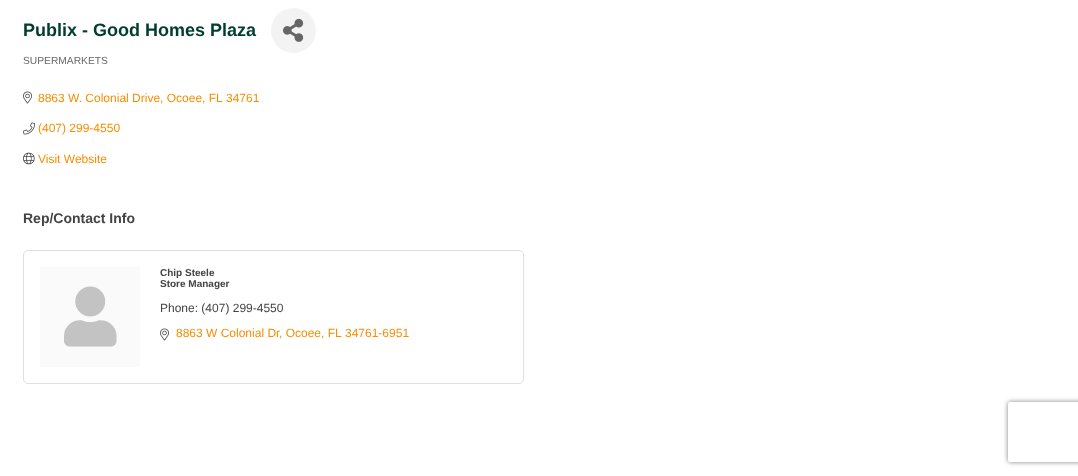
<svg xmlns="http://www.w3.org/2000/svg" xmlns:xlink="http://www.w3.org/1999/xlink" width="1078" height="476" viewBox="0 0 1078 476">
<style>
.cls-1{font:bold 18px Liberation Sans;fill:#003d2d}
.cls-2{font:10.25px Liberation Sans;fill:#696969}
.cls-3{font:12px Liberation Sans;fill:#f88d00}
.cls-4{font:bold 14px Liberation Sans;fill:#444444}
.cls-5{font:bold 10px Liberation Sans;fill:#444444}
.cls-6{font:12px Liberation Sans;fill:#444444}
</style>
<defs>
<clipPath id="clip1"><path d="M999 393H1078V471H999ZM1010 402H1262C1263 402 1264 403 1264 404V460C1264 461 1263 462 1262 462H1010C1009 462 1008 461 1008 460V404C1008 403 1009 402 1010 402Z" clip-rule="evenodd"/></clipPath>
</defs>
<rect width="100%" height="100%" fill="#ffffff"/>
<circle fill="#f3f3f3" cx="293.5" cy="30.5" r="22.5"/>
<image xlink:href="image0.png" x="283" y="18" width="21" height="24"/>
<image xlink:href="image1.png" x="23" y="91" width="9" height="13"/>
<image xlink:href="image2.png" x="23" y="122" width="12" height="13"/>
<image xlink:href="image3.png" x="23" y="152" width="12" height="13"/>
<rect fill="none" stroke="#dfdfdf" x="23.5" y="250.5" width="500" height="133" rx="4.5"/>
<rect fill="#fafafa" x="40" y="267" width="100" height="100"/>
<image xlink:href="image4.png" x="64" y="286" width="53" height="61"/>
<image xlink:href="image1.png" x="160" y="328" width="9" height="13"/>
<g clip-path="url(#clip1)">
<rect fill="#808080" filter="blur(2.5px)" x="1008" y="402" width="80" height="60" rx="2"/>
</g>
<text class="cls-1" x="23" y="36">Publix - Good Homes Plaza</text>
<text class="cls-2" x="23" y="64">SUPERMARKETS</text>
<text class="cls-3" x="38" y="102">8863 W. Colonial Drive, Ocoee, FL</text>
<text class="cls-3" x="226" y="102">34761</text>
<text class="cls-3" x="38" y="132">(407) 299-4550</text>
<text class="cls-3" x="38" y="163">Visit Website</text>
<text class="cls-4" x="23" y="223">Rep/Contact Info</text>
<text class="cls-5"><tspan x="160" y="276">Chip Steele</tspan><tspan x="160" y="287">Store Manager</tspan></text>
<text class="cls-6" x="160" y="312">Phone: (407) 299-4550</text>
<text class="cls-3" x="176" y="337">8863 W Colonial Dr</text>
<text class="cls-3" x="279" y="337">, Ocoee, FL</text>
<text class="cls-3" x="345" y="337">34761-6951</text>
</svg>
